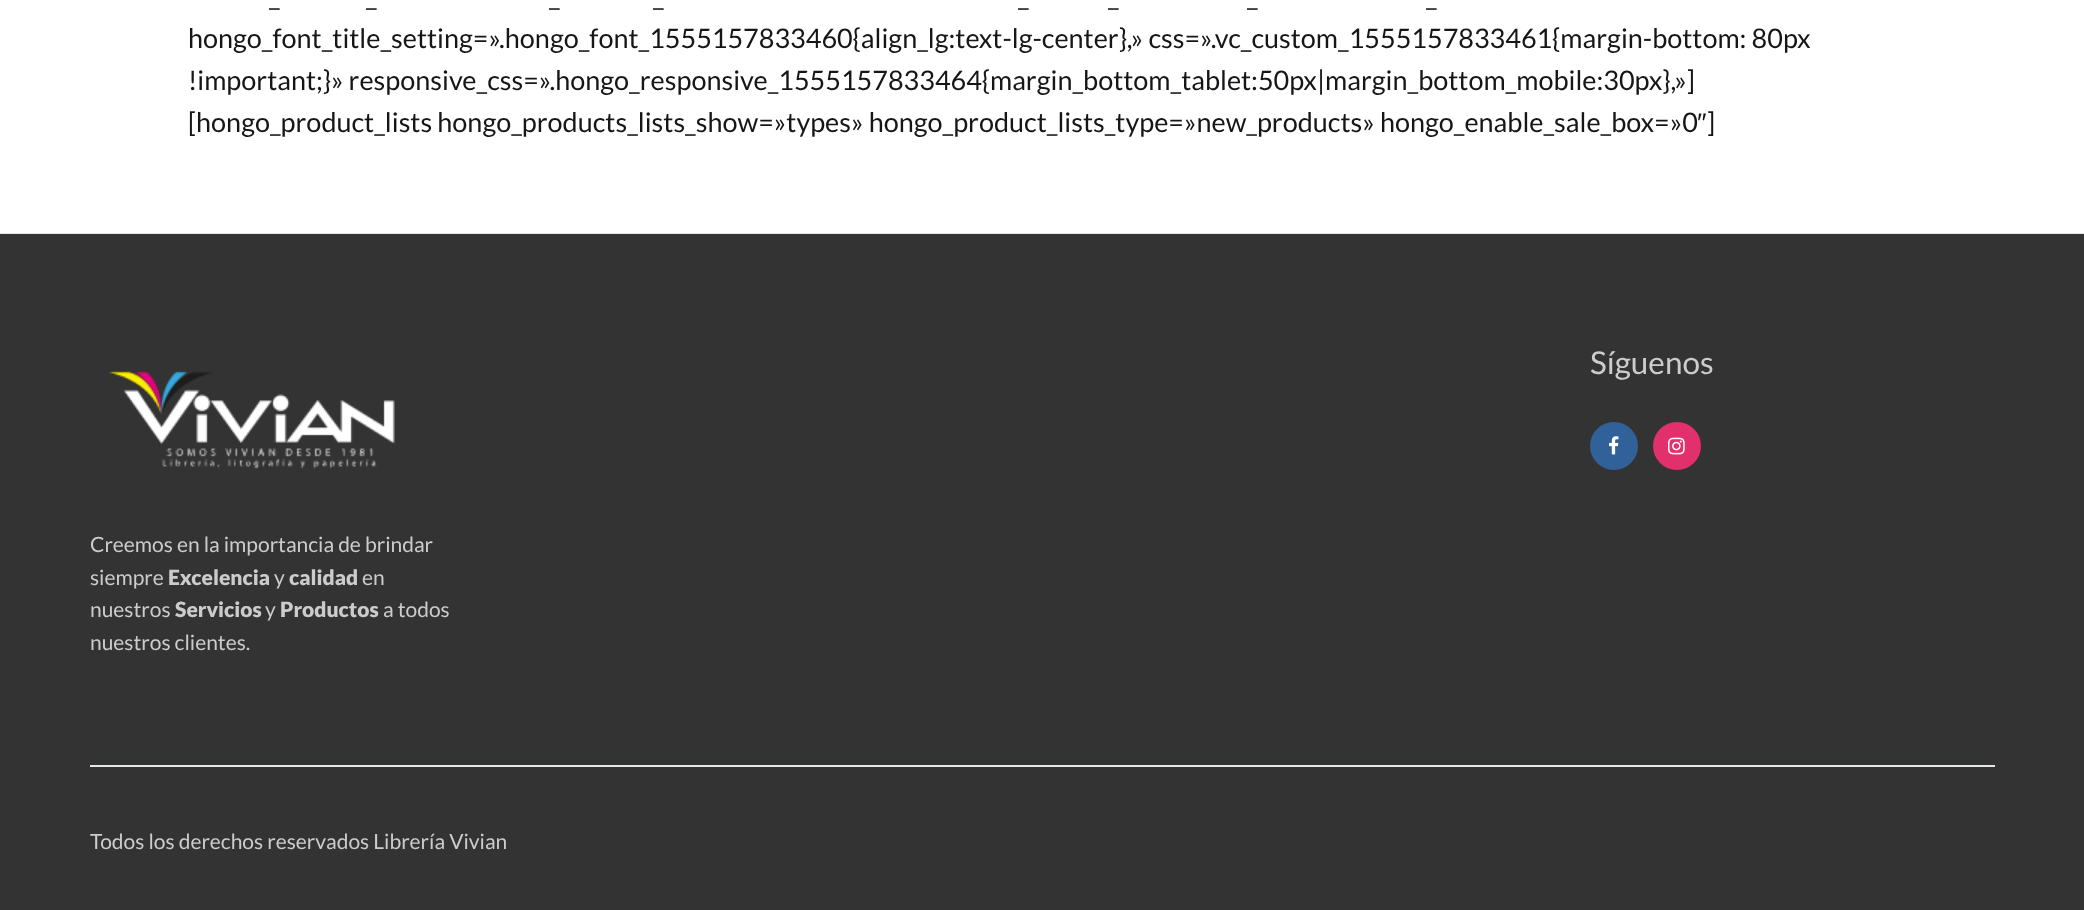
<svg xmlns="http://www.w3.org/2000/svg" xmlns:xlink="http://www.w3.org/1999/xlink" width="2084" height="910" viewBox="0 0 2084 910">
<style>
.cls-1{font:27px Lato;fill:#161619}
.cls-2{font:27px Liberation Sans;fill:#161619}
.cls-3{font:31.5px Lato;fill:#cccccc}
.cls-4{font:21px Lato;fill:#cccccc}
.cls-5{font:900 21px Lato;fill:#cccccc}
</style>
<rect width="100%" height="100%" fill="#ffffff"/>
<rect fill="#e3e7e8" x="0" y="233" width="2084" height="1"/>
<rect fill="#333333" x="0" y="234" width="2084" height="676"/>
<circle fill="#306199" cx="1614" cy="446" r="24"/>
<image xlink:href="image0.png" x="1609" y="436" width="10" height="19"/>
<circle fill="#e1306c" cx="1677" cy="446" r="24"/>
<image xlink:href="image1.png" x="1668" y="437" width="17" height="18"/>
<image xlink:href="image2.png" x="109" y="371" width="286" height="98"/>
<rect fill="#e3e7e8" x="90" y="765" width="1905" height="2"/>
<text class="cls-1" x="269" y="6">_</text>
<text class="cls-1" x="366" y="6">_</text>
<text class="cls-1" x="549" y="6">_</text>
<text class="cls-1" x="653" y="6">_</text>
<text class="cls-1" x="1018" y="6">_</text>
<text class="cls-1" x="1108" y="6">_</text>
<text class="cls-1" x="1247" y="6">_</text>
<text class="cls-1" x="1426" y="6">_</text>
<text class="cls-1"><tspan x="188" y="48">hongo_font_title_setting=».hongo_font_1555157833460{align_lg:text-lg-center},» css=».vc_custom_1555157833461{margin-bottom: 80px</tspan><tspan x="188" y="90">!important;}» responsive_css=».hongo_responsive_1555157833464{margin_bottom_tablet:50px|margin_bottom_mobile:30px},»]</tspan><tspan x="188" y="132">[hongo_product_lists hongo_products_lists_show=»types» hongo_product_lists_type=»new_products» hongo_enable_sale_box=»0</tspan></text>
<text class="cls-2" x="1697" y="132">″</text>
<text class="cls-1" x="1707" y="132">]</text>
<text class="cls-3" x="1590" y="374">Síguenos</text>
<text class="cls-4"><tspan x="90" y="552">Creemos en la importancia de brindar</tspan><tspan x="90" y="585">siempre</tspan></text>
<text class="cls-5" x="168" y="585">Excelencia</text>
<text class="cls-4" x="274" y="585">y</text>
<text class="cls-5" x="289" y="585">calidad</text>
<text class="cls-4" x="362" y="585">en</text>
<text class="cls-4" x="90" y="617">nuestros</text>
<text class="cls-5" x="175" y="617">Servicios</text>
<text class="cls-4" x="265" y="617">y</text>
<text class="cls-5" x="280" y="617">Productos</text>
<text class="cls-4" x="383" y="617">a todos</text>
<text class="cls-4" x="90" y="650">nuestros clientes.</text>
<text class="cls-4" x="90" y="849">Todos los derechos reservados Librería Vivian</text>
</svg>
